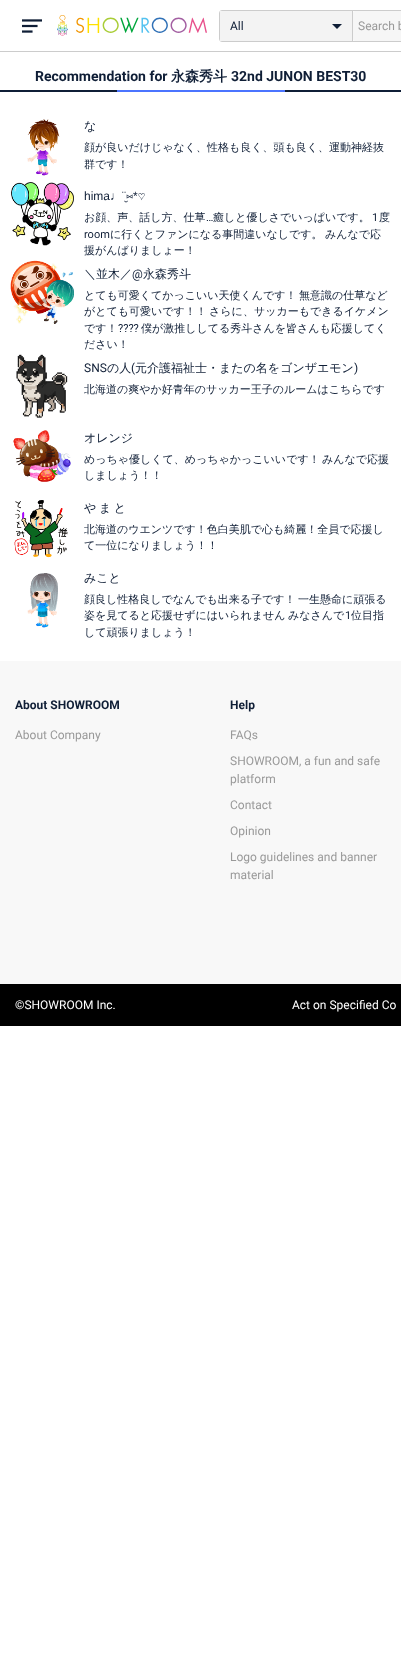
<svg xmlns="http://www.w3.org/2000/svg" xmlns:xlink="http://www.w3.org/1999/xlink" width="401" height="1659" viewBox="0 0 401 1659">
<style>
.cls-1{font:12px Roboto;fill:#0f1e36}
.cls-2{font:12px Roboto;fill:#999999}
.cls-3{font:bold 14px Roboto;fill:#0f1e36}
.cls-4{font:bold 14px WenQuanYi Zen Hei;fill:#0f1e36}
.cls-5{font:500 12px WenQuanYi Zen Hei;fill:#0f1e36}
.cls-6{font:500 11px WenQuanYi Zen Hei;fill:#0f1e36}
.cls-7{font:12px Liberation Sans;fill:#0f1e36}
.cls-8{font:12px FreeMono;fill:#0f1e36}
.cls-9{font:11px Roboto;fill:#0f1e36}
.cls-10{font:bold 12px Roboto;fill:#0f1e36}
.cls-11{font:12px Roboto;fill:#ffffff}
</style>
<rect width="100%" height="100%" fill="#ffffff"/>
<rect fill="#cccccc" x="0" y="51" width="401" height="1"/>
<image xlink:href="image0.png" x="22" y="19" width="20" height="14"/>
<image xlink:href="image1.png" x="57" y="15" width="150" height="21"/>
<rect fill="none" stroke="#cccccc" x="219.5" y="10.5" width="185" height="31" rx="2.5"/>
<rect fill="#f3f3f3" x="220" y="11" width="132" height="30"/>
<rect fill="#cccccc" x="352" y="11" width="1" height="30"/>
<path fill="#0f1e36" d="M332 24H342L337 29Z"/>
<rect fill="#f6f6f6" x="353" y="11" width="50" height="30" rx="2"/>
<rect fill="#0f1e36" x="0" y="90" width="401" height="2"/>
<rect fill="#4b74ff" x="117" y="90" width="168" height="2"/>
<image xlink:href="image2.png" x="27" y="119" width="33" height="57"/>
<image xlink:href="image3.png" x="11" y="182" width="63" height="64"/>
<image xlink:href="image4.png" x="10" y="260" width="64" height="64"/>
<image xlink:href="image5.png" x="16" y="354" width="52" height="64"/>
<image xlink:href="image6.png" x="13" y="430" width="58" height="52"/>
<image xlink:href="image7.png" x="14" y="500" width="54" height="58"/>
<image xlink:href="image8.png" x="27" y="573" width="31" height="55"/>
<rect fill="#f8f8f8" x="0" y="661" width="401" height="323"/>
<rect fill="#000000" x="0" y="984" width="401" height="42"/>
<text class="cls-1" x="230" y="30">All</text>
<text class="cls-2" x="358" y="30">Search b</text>
<text class="cls-3" x="35" y="81">Recommendation for</text>
<text class="cls-4" x="171" y="81">永森秀斗</text>
<text class="cls-3" x="231" y="81">32nd JUNON BEST30</text>
<text class="cls-5" x="84" y="130">な</text>
<text class="cls-6"><tspan x="84" y="151">顔が良いだけじゃなく、性格も良く、頭も良く、運動神経抜</tspan><tspan x="84" y="168">群です！</tspan></text>
<text class="cls-7" x="84" y="200">hima♩¨̮</text>
<text class="cls-8" x="126" y="200">⑅</text>
<text class="cls-7" x="133" y="200">*</text>
<text class="cls-8" x="138" y="200">♡</text>
<text class="cls-6" x="84" y="221">お顔、声、話し方、仕草</text>
<text class="cls-9" x="206" y="221">…</text>
<text class="cls-6" x="213" y="221">癒しと優しさでいっぱいです。</text>
<text class="cls-9" x="372" y="221">1</text>
<text class="cls-6" x="379" y="221">度</text>
<text class="cls-9" x="84" y="238">room</text>
<text class="cls-6" x="110" y="238" word-spacing="-1">に行くとファンになる事間違いなしです。 みんなで応</text>
<text class="cls-6" x="84" y="254">援がんばりましょー！</text>
<text class="cls-5" x="84" y="278">＼並木／</text>
<text class="cls-1" x="132" y="278">@</text>
<text class="cls-5" x="143" y="278">永森秀斗</text>
<text class="cls-6"><tspan x="84" y="299" word-spacing="-1">とても可愛くてかっこいい天使くんです！ 無意識の仕草など</tspan><tspan x="84" y="315" word-spacing="-1">がとても可愛いです！！ さらに、サッカーもできるイケメン</tspan><tspan x="84" y="332">です！</tspan></text>
<text class="cls-9" x="118" y="332">????</text>
<text class="cls-6" x="141" y="332">僕が激推ししてる秀斗さんを皆さんも応援してく</text>
<text class="cls-6" x="84" y="348">ださい！</text>
<text class="cls-1" x="84" y="372">SNS</text>
<text class="cls-5" x="107" y="372">の人</text>
<text class="cls-1" x="131" y="372">(</text>
<text class="cls-5" x="135" y="372">元介護福祉士・またの名をゴンザエモン</text>
<text class="cls-1" x="354" y="372">)</text>
<text class="cls-6" x="84" y="393">北海道の爽やか好青年のサッカー王子のルームはこちらです</text>
<text class="cls-5" x="84" y="442">オレンジ</text>
<text class="cls-6"><tspan x="84" y="463" word-spacing="-1">めっちゃ優しくて、めっちゃかっこいいです！ みんなで応援</tspan><tspan x="84" y="479">しましょう！！</tspan></text>
<text class="cls-5" x="84" y="512" word-spacing="-1">や ま と</text>
<text class="cls-6"><tspan x="84" y="533">北海道のウエンツです！色白美肌で心も綺麗！全員で応援し</tspan><tspan x="84" y="549">て一位になりましょう！！</tspan></text>
<text class="cls-5" x="84" y="582">みこと</text>
<text class="cls-6"><tspan x="84" y="603" word-spacing="-1">顔良し性格良しでなんでも出来る子です！ 一生懸命に頑張る</tspan><tspan x="84" y="619" word-spacing="-1">姿を見てると応援せずにはいられません みなさんで</tspan></text>
<text class="cls-9" x="345" y="619">1</text>
<text class="cls-6" x="351" y="619">位目指</text>
<text class="cls-6" x="84" y="636">して頑張りましょう！</text>
<text class="cls-10" x="15" y="709">About SHOWROOM</text>
<text class="cls-2" x="15" y="739">About Company</text>
<text class="cls-10" x="230" y="709">Help</text>
<text class="cls-2" x="230" y="739">FAQs</text>
<text class="cls-2"><tspan x="230" y="765">SHOWROOM, a fun and safe</tspan><tspan x="230" y="783">platform</tspan></text>
<text class="cls-2" x="230" y="809">Contact</text>
<text class="cls-2" x="230" y="835">Opinion</text>
<text class="cls-2"><tspan x="230" y="861">Logo guidelines and banner</tspan><tspan x="230" y="879">material</tspan></text>
<text class="cls-11" x="15" y="1009">©SHOWROOM Inc.</text>
<text class="cls-11" x="292" y="1009">Act on Specified Co</text>
</svg>
